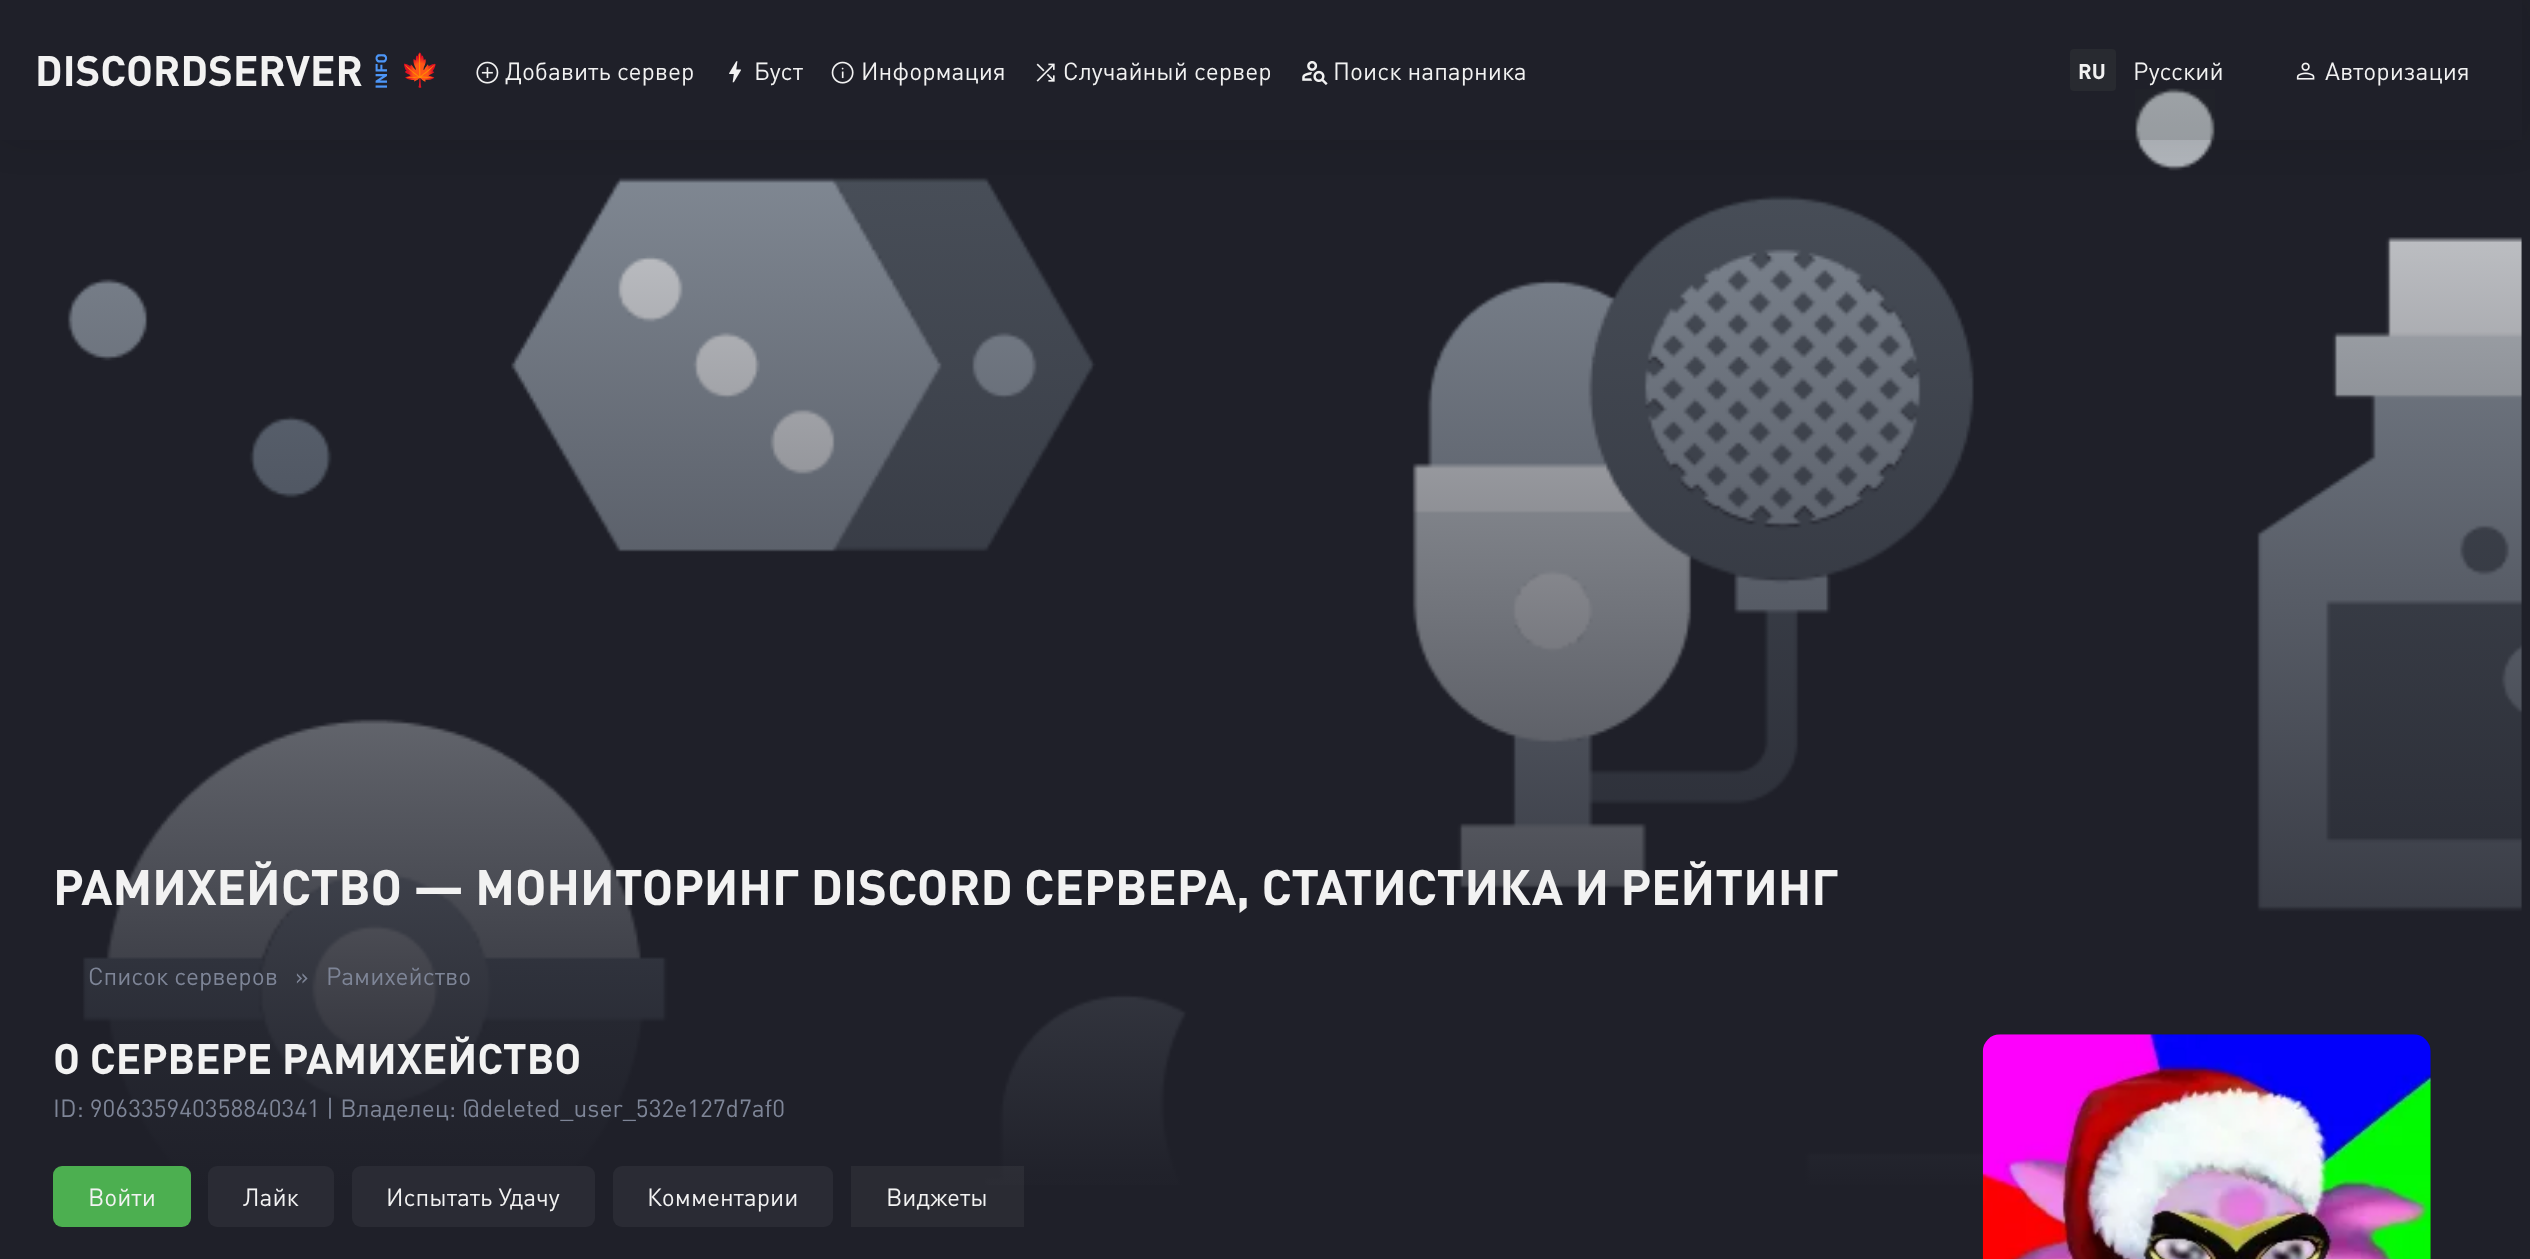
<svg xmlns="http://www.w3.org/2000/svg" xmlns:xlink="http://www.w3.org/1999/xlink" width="2530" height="1259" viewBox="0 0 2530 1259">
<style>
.cls-1{font:bold 42px DIN;fill:#f2f2f2}
.cls-2{font:bold 16px DIN;fill:#4d96f7}
.cls-3{font:bold 32px Noto Color Emoji;fill:#f2f2f2}
.cls-4{font:24.5px DIN;fill:#f2f2f2}
.cls-5{font:bold 21px DIN;fill:#f2f2f2}
.cls-6{font:bold 49px DIN;fill:#f2f2f2}
.cls-7{font:24.5px DIN;fill:#7e8597}
</style>
<defs>
<linearGradient id="g1" gradientUnits="userSpaceOnUse" x1="1261" y1="0" x2="1261" y2="1192"><stop offset="0" stop-color="#1f2029" stop-opacity="0"/><stop offset="1" stop-color="#1f2029"/></linearGradient>
<clipPath id="clip1"><path d="M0 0H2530V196H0ZM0 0H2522V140H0Z" clip-rule="evenodd"/></clipPath>
</defs>
<rect width="100%" height="100%" fill="#1f2029"/>
<image xlink:href="image6.png" x="67" y="88" width="2455" height="1097"/>
<rect fill="url(#g1)" x="68" y="89" width="2454" height="1096"/>
<g clip-path="url(#clip1)">
<rect fill="#000000" fill-opacity="0.1" filter="blur(17.5px)" x="-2" y="-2" width="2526" height="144"/>
</g>
<rect fill="#2a2c2f" fill-opacity="0.2" x="2135" y="89" width="80" height="51"/>
<image xlink:href="image0.png" x="476" y="61" width="23" height="23"/>
<image xlink:href="image1.png" x="729" y="61" width="12" height="22"/>
<image xlink:href="image2.png" x="831" y="61" width="23" height="23"/>
<image xlink:href="image3.png" x="1036" y="63" width="19" height="19"/>
<image xlink:href="image4.png" x="1302" y="61" width="26" height="24"/>
<rect fill="#282a30" x="2070" y="49" width="46" height="42" rx="4"/>
<image xlink:href="image5.png" x="2296" y="62" width="19" height="18"/>
<rect fill="#4caf50" x="53" y="1166" width="138" height="61" rx="9"/>
<rect fill="#2a2b34" x="208" y="1166" width="126" height="61" rx="9"/>
<rect fill="#2a2b34" x="352" y="1166" width="243" height="61" rx="9"/>
<rect fill="#2a2b34" x="613" y="1166" width="220" height="61" rx="9"/>
<rect fill="#ffffff" fill-opacity="0.05" x="851" y="1166" width="173" height="61"/>
<image xlink:href="image7.png" x="1982" y="1034" width="449" height="225"/>
<text class="cls-1" x="35" y="86">DISCORDSERVER</text>
<text class="cls-2" x="387" y="89" transform="rotate(-90 387 89)">INFO</text>
<text class="cls-3" x="400" y="81">🍁</text>
<text class="cls-4" x="505" y="80">Добавить сервер</text>
<text class="cls-4" x="754" y="80">Буст</text>
<text class="cls-4" x="861" y="80">Информация</text>
<text class="cls-4" x="1063" y="80">Случайный сервер</text>
<text class="cls-4" x="1333" y="80">Поиск напарника</text>
<text class="cls-5" x="2078" y="79">RU</text>
<text class="cls-4" x="2133" y="80">Русский</text>
<text class="cls-4" x="2325" y="80">Авторизация</text>
<text class="cls-6" x="53" y="905">РАМИХЕЙСТВО — МОНИТОРИНГ DISCORD СЕРВЕРА, СТАТИСТИКА И РЕЙТИНГ</text>
<text class="cls-7" x="88" y="985">Список серверов</text>
<text class="cls-7" x="295" y="985">»</text>
<text class="cls-7" x="326" y="985">Рамихейство</text>
<text class="cls-1" x="53" y="1074">О СЕРВЕРЕ РАМИХЕЙСТВО</text>
<text class="cls-7" x="53" y="1117">ID: 906335940358840341 | Владелец: @deleted_user_532e127d7af0</text>
<text class="cls-4" x="88" y="1206">Войти</text>
<text class="cls-4" x="243" y="1206">Лайк</text>
<text class="cls-4" x="386" y="1206">Испытать Удачу</text>
<text class="cls-4" x="647" y="1206">Комментарии</text>
<text class="cls-4" x="886" y="1206">Виджеты</text>
</svg>
